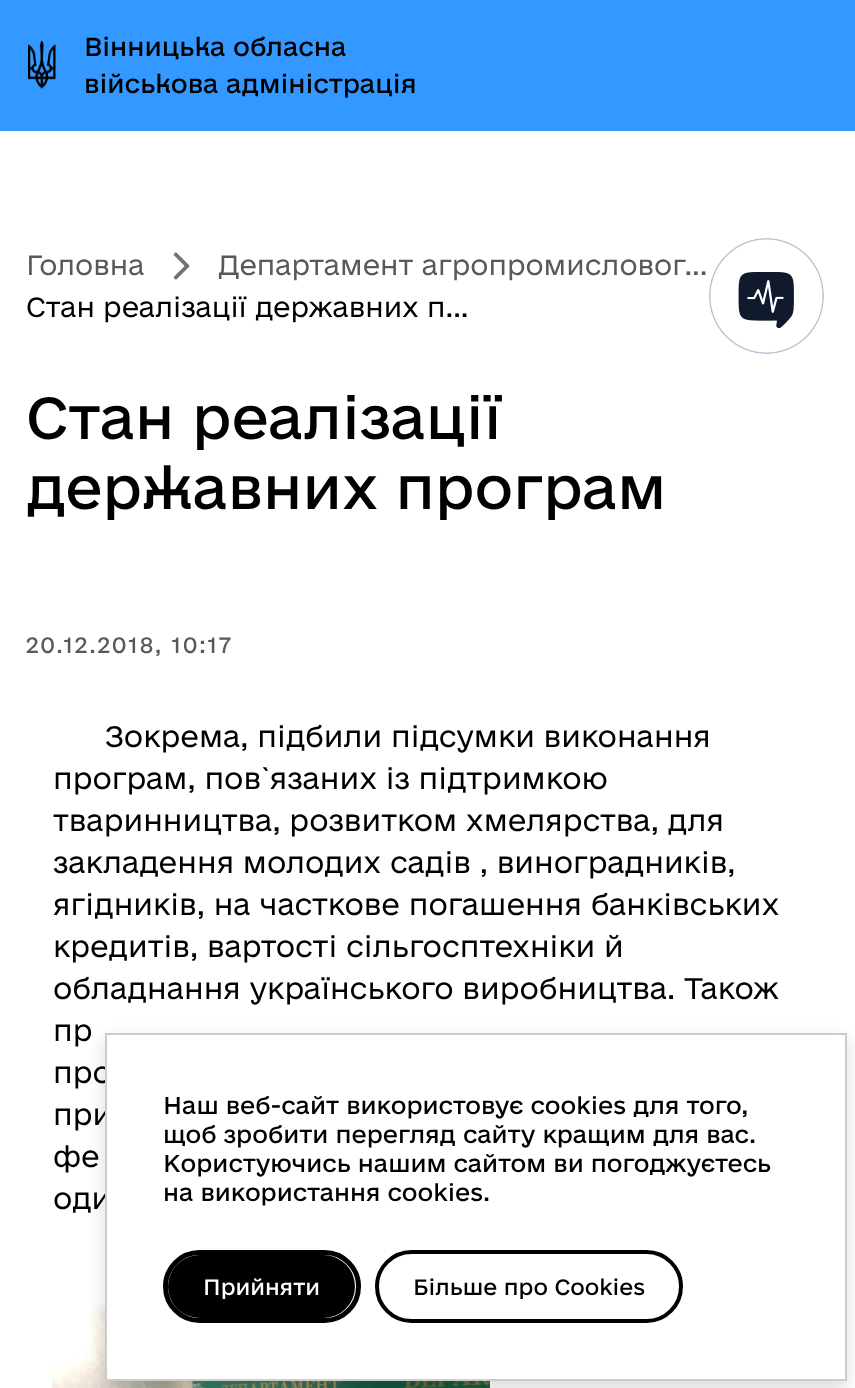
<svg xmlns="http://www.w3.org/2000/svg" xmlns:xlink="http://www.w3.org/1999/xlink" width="855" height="1388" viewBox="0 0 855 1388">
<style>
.cls-1{font:24.5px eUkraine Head;fill:#000000}
.cls-2{font:300 26.25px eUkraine;fill:#595959}
.cls-3{font:300 26.25px eUkraine;fill:#000000}
.cls-4{font:56px eUkraine Head;fill:#000000}
.cls-5{font:21px eUkraine;letter-spacing:1.75px;fill:#595959}
.cls-6{font:300 28px eUkraine;fill:#000000}
.cls-7{font:22.75px eUkraine;fill:#000000}
.cls-8{font:21px eUkraine;fill:#ffffff}
.cls-9{font:21px eUkraine;fill:#000000}
</style>
<rect width="100%" height="100%" fill="#ffffff"/>
<rect fill="#3398ff" x="0" y="0" width="855" height="131"/>
<image xlink:href="image0.png" x="28" y="40" width="28" height="49"/>
<image xlink:href="image1.png" x="173" y="252" width="17" height="28"/>
<image xlink:href="image2.png" x="52" y="1304" width="438" height="84"/>
<image xlink:href="image3.png" x="709" y="238" width="115" height="116"/>
<rect fill="#000000" fill-opacity="0.15" filter="blur(9px)" x="105" y="1040" width="742" height="348"/>
<text class="cls-1"><tspan x="84" y="56">Вінницька обласна</tspan><tspan x="84" y="93">військова адміністрація</tspan></text>
<text class="cls-2" x="26" y="275">Головна</text>
<text class="cls-2" x="218" y="275">Департамент агропромисловог...</text>
<text class="cls-3" x="26" y="317">Стан реалізації державних п...</text>
<text class="cls-4"><tspan x="26" y="439">Стан реалізації</tspan><tspan x="26" y="509">державних програм</tspan></text>
<text class="cls-5" x="26" y="653">20.12.2018, 10:17</text>
<text class="cls-6" x="105" y="747">Зокрема, підбили підсумки виконання</text>
<text class="cls-6"><tspan x="53" y="789">програм, пов`язаних із підтримкою</tspan><tspan x="53" y="831">тваринництва, розвитком хмелярства, для</tspan><tspan x="53" y="873">закладення молодих садів , виноградників,</tspan><tspan x="53" y="915">ягідників, на часткове погашення банківських</tspan><tspan x="53" y="957">кредитів, вартості сільгосптехніки й</tspan><tspan x="53" y="999">обладнання українського виробництва. Також</tspan><tspan x="53" y="1041">пр</tspan><tspan x="53" y="1083">про</tspan><tspan x="53" y="1125">при</tspan><tspan x="53" y="1167">фе</tspan><tspan x="53" y="1209">оди</tspan></text>
<rect fill="#ffffff" stroke="#cccccc" stroke-width="2" x="106" y="1034" width="740" height="346"/>
<text class="cls-7"><tspan x="163" y="1114">Наш веб-сайт використовує cookies для того,</tspan><tspan x="163" y="1143">щоб зробити перегляд сайту кращим для вас.</tspan><tspan x="163" y="1172">Користуючись нашим сайтом ви погоджуєтесь</tspan><tspan x="163" y="1201">на використання cookies.</tspan></text>
<rect fill="#000000" x="168" y="1255" width="187" height="63" rx="31.5"/>
<rect fill="none" stroke="#000000" stroke-width="5" x="165.5" y="1252.5" width="193" height="68" rx="34"/>
<text class="cls-8" x="203" y="1295">Прийняти</text>
<rect fill="none" stroke="#000000" stroke-width="4" x="377" y="1252" width="304" height="69" rx="34.5"/>
<text class="cls-9" x="413" y="1295">Більше про Cookies</text>
</svg>
